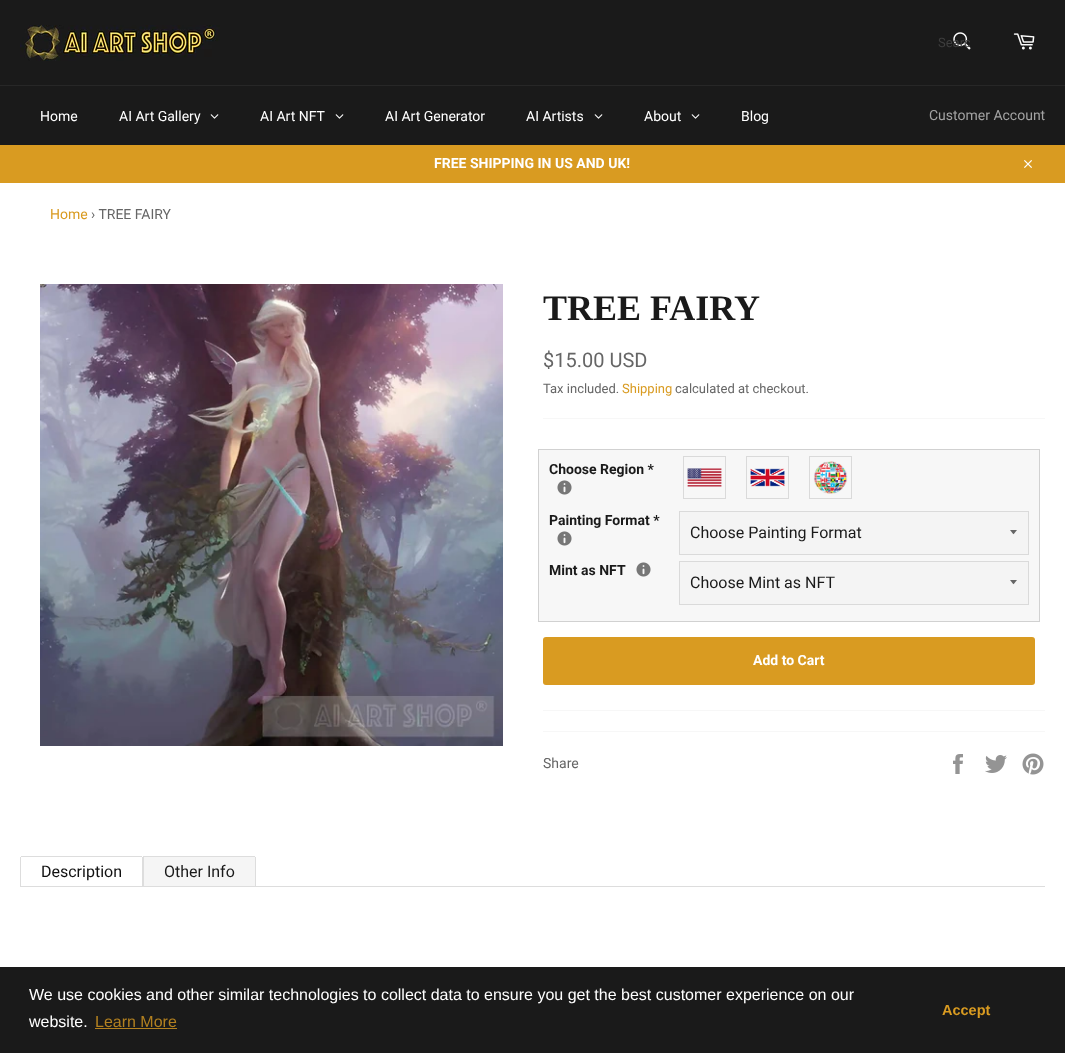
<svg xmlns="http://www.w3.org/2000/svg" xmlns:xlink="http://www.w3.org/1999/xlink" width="1065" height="1053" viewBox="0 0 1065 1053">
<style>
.cls-1{font:13px Roboto;fill:#3d3d3d}
.cls-2{font:14px Roboto;fill:#ffffff}
.cls-3{font:14px Roboto;fill:#a3a3a3}
.cls-4{font:bold 14px Roboto;fill:#ffffff}
.cls-5{font:14px Roboto;fill:#d99b21}
.cls-6{font:14px Roboto;fill:#666666}
.cls-7{font:bold 36px Liberation Serif;fill:#1a1a1a}
.cls-8{font:20px Roboto;fill:#666666}
.cls-9{font:13px Roboto;fill:#666666}
.cls-10{font:13px Roboto;fill:#d99b21}
.cls-11{font:bold 14px Roboto;fill:#1a1a1a}
.cls-12{font:16px Roboto;fill:#1a1a1a}
.cls-13{font:16px Roboto;fill:#111111}
.cls-14{font:16px Liberation Sans;fill:#ffffff}
.cls-15{font:16px Liberation Sans;fill:#b38120}
.cls-16{font:bold 14.5px Liberation Sans;fill:#d99b21}
</style>
<defs>
<clipPath id="clip1"><rect x="938" y="35" width="32" height="15"/></clipPath>
</defs>
<rect width="100%" height="100%" fill="#1a1a1a"/>
<image xlink:href="image0.png" x="20" y="25" width="200" height="36"/>
<image xlink:href="image1.png" x="953" y="32" width="18" height="18"/>
<image xlink:href="image2.png" x="1013" y="33" width="22" height="17"/>
<rect fill="#272727" x="0" y="85" width="1065" height="1"/>
<image xlink:href="image3.png" x="210" y="114" width="9" height="5"/>
<image xlink:href="image3.png" x="335" y="114" width="9" height="5"/>
<image xlink:href="image3.png" x="594" y="114" width="9" height="5"/>
<image xlink:href="image3.png" x="691" y="114" width="9" height="5"/>
<rect fill="#d99b21" x="0" y="145" width="1065" height="38"/>
<image xlink:href="image4.png" x="1024" y="160" width="8" height="8"/>
<rect fill="#ffffff" x="0" y="183" width="1065" height="784"/>
<image xlink:href="image5.png" x="40" y="284" width="463" height="462"/>
<rect fill="#f7f7f7" x="543" y="418" width="502" height="1"/>
<rect fill="#f7f7f7" stroke="#d1d1d1" x="538.5" y="449.5" width="501" height="172"/>
<image xlink:href="image6.png" x="557" y="480" width="15" height="15"/>
<image xlink:href="image7.png" x="687" y="468" width="35" height="19"/>
<rect fill="none" stroke="#dadada" x="683.5" y="456.5" width="42" height="42"/>
<image xlink:href="image8.png" x="750" y="468" width="35" height="19"/>
<rect fill="none" stroke="#dadada" x="746.5" y="456.5" width="42" height="42"/>
<image xlink:href="image9.png" x="813" y="461" width="35" height="33"/>
<rect fill="none" stroke="#dadada" x="809.5" y="456.5" width="42" height="42"/>
<image xlink:href="image6.png" x="557" y="531" width="15" height="15"/>
<rect fill="#f4f4f4" x="680" y="512" width="348" height="42"/>
<path fill="#666666" d="M1010 530C1014.5 535.5 1012.5 535.5 1017 530Z"/>
<rect fill="none" stroke="#dadada" x="679.5" y="511.5" width="349" height="43"/>
<image xlink:href="image6.png" x="636" y="562" width="15" height="15"/>
<rect fill="#f4f4f4" x="680" y="562" width="348" height="42"/>
<path fill="#666666" d="M1010 580C1014.5 585.5 1012.5 585.5 1017 580Z"/>
<rect fill="none" stroke="#dadada" x="679.5" y="561.5" width="349" height="43"/>
<rect fill="#d99b21" x="543" y="637" width="492" height="48" rx="3"/>
<rect fill="#f7f7f7" x="543" y="710" width="502" height="1"/>
<rect fill="#f7f7f7" x="543" y="731" width="502" height="1"/>
<image xlink:href="image10.png" x="953" y="754" width="10" height="20"/>
<image xlink:href="image11.png" x="985" y="755" width="22" height="18"/>
<image xlink:href="image12.png" x="1022" y="753" width="22" height="22"/>
<rect fill="#dddddd" x="20" y="886" width="1025" height="1"/>
<rect fill="#dddddd" x="21" y="856" width="121" height="1"/>
<rect fill="#dddddd" x="142" y="857" width="1" height="29"/>
<rect fill="#dddddd" x="20" y="857" width="1" height="29"/>
<path fill="#f5f5f5" d="M143 856H254C255 856 256 857 256 858V886H143Z"/>
<rect fill="#dddddd" x="143" y="856" width="112" height="1"/>
<rect fill="#dddddd" x="255" y="857" width="1" height="29"/>
<rect fill="#dddddd" x="143" y="856" width="1" height="30"/>
<rect fill="#b38120" x="95" y="1028" width="82" height="1"/>
<g clip-path="url(#clip1)">
<text class="cls-1" x="938" y="47">Searc</text>
</g>
<text class="cls-2" x="40" y="121">Home</text>
<text class="cls-2" x="119" y="121">AI Art Gallery</text>
<text class="cls-2" x="260" y="121">AI Art NFT</text>
<text class="cls-2" x="385" y="121">AI Art Generator</text>
<text class="cls-2" x="526" y="121">AI Artists</text>
<text class="cls-2" x="644" y="121">About</text>
<text class="cls-2" x="741" y="121">Blog</text>
<text class="cls-3" x="929" y="120">Customer Account</text>
<text class="cls-4" x="434" y="168">FREE SHIPPING IN US AND UK!</text>
<text class="cls-5" x="50" y="219">Home</text>
<text class="cls-6" x="91" y="219">› TREE FAIRY</text>
<text class="cls-7" x="543" y="320">TREE FAIRY</text>
<text class="cls-8" x="543" y="367">$15.00 USD</text>
<text class="cls-9" x="543" y="393">Tax included.</text>
<text class="cls-10" x="622" y="393">Shipping</text>
<text class="cls-9" x="675" y="393">calculated at checkout.</text>
<text class="cls-11" x="549" y="474">Choose Region *</text>
<text class="cls-11" x="549" y="525">Painting Format *</text>
<text class="cls-12" x="690" y="538">Choose Painting Format</text>
<text class="cls-11" x="549" y="575">Mint as NFT</text>
<text class="cls-12" x="690" y="588">Choose Mint as NFT</text>
<text class="cls-4" x="753" y="665">Add to Cart</text>
<text class="cls-6" x="543" y="768">Share</text>
<text class="cls-13" x="41" y="877">Description</text>
<text class="cls-12" x="164" y="877">Other Info</text>
<text class="cls-14"><tspan x="29" y="1000">We use cookies and other similar technologies to collect data to ensure you get the best customer experience on our</tspan><tspan x="29" y="1027">website.</tspan></text>
<text class="cls-15" x="95" y="1027">Learn More</text>
<text class="cls-16" x="942" y="1015">Accept</text>
</svg>
